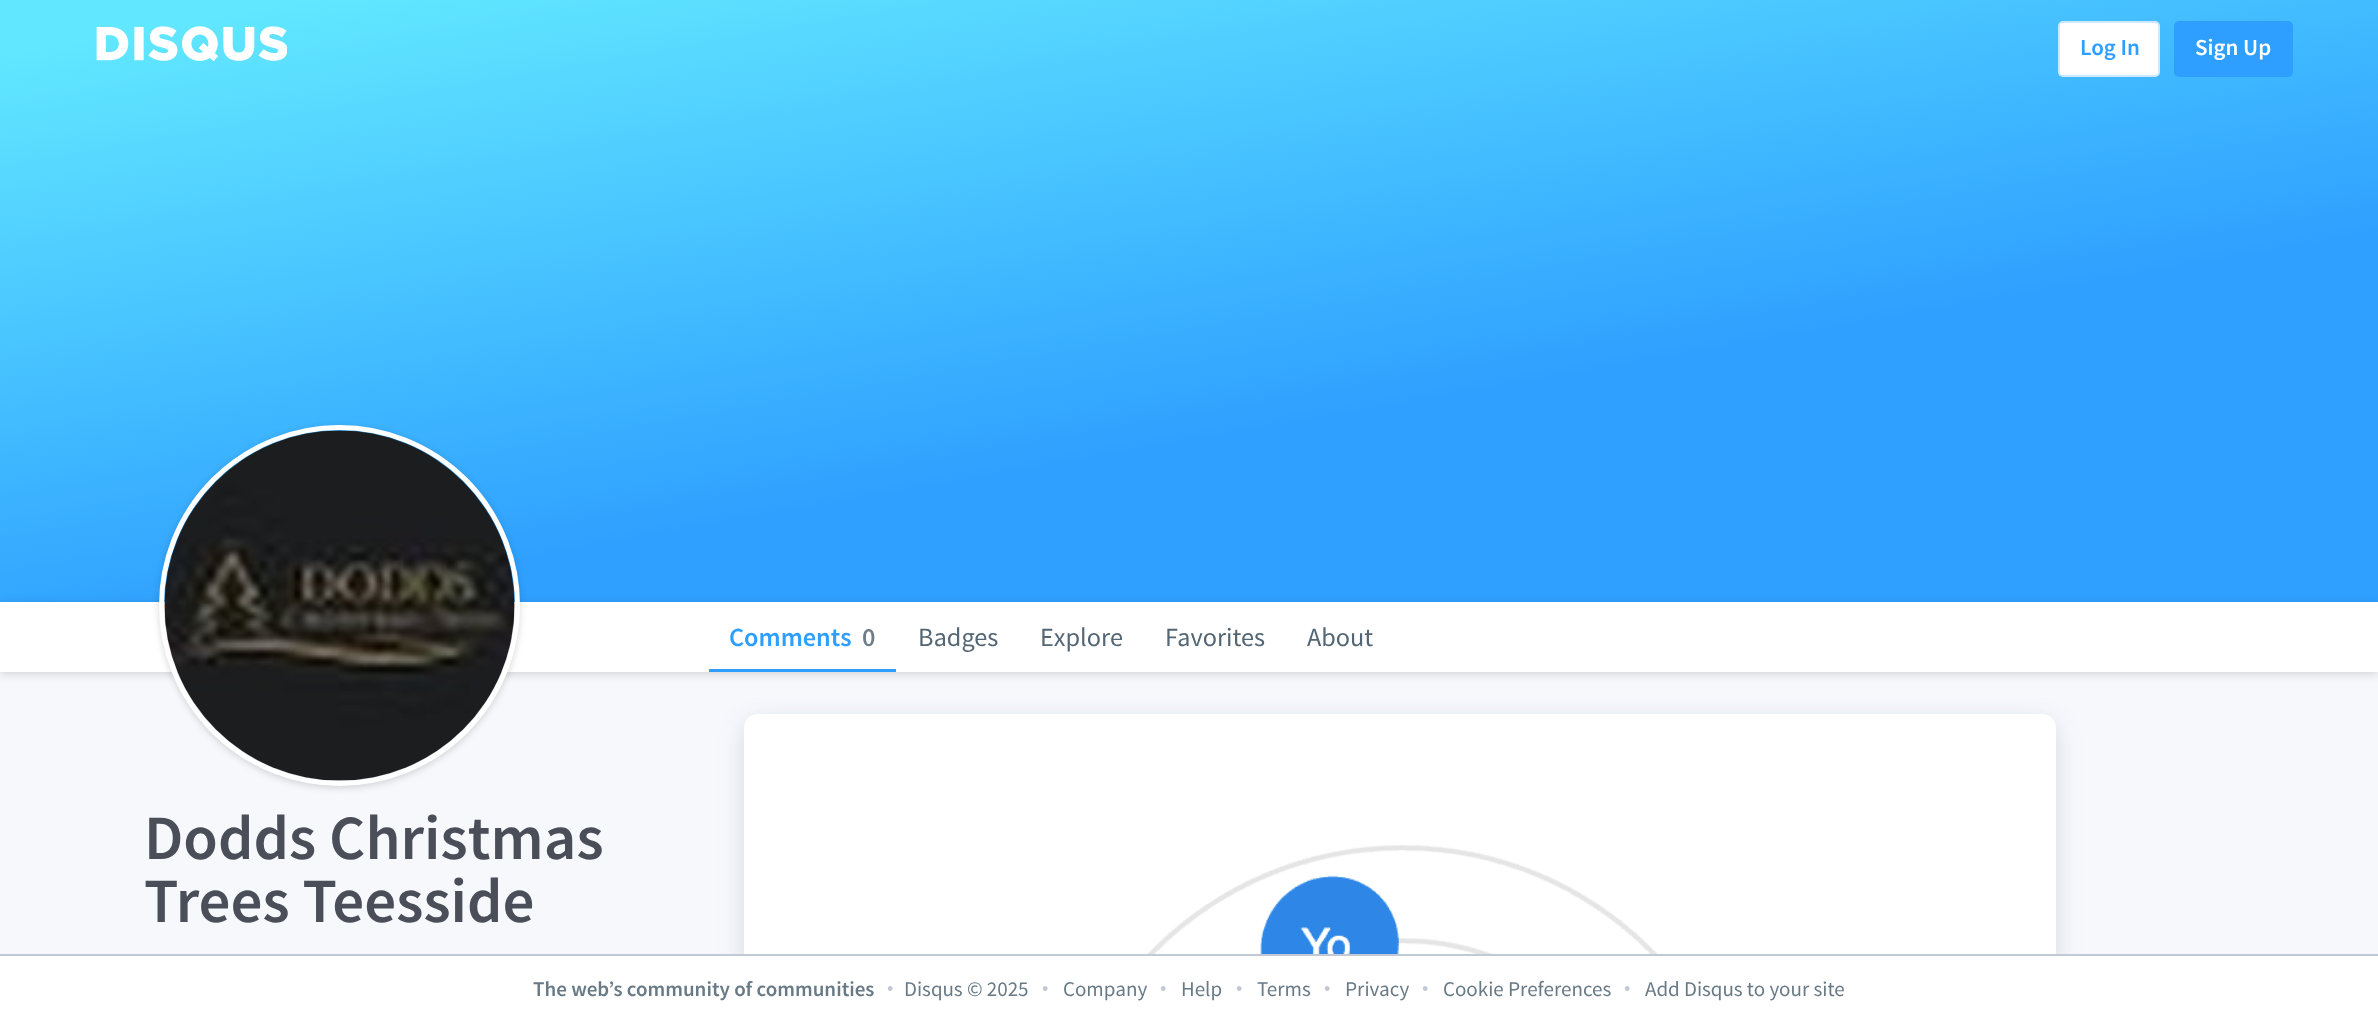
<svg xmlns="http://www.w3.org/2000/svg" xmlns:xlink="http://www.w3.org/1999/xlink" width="2378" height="1022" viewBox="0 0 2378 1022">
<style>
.cls-1{font:600 23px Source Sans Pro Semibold;fill:#2e9fff}
.cls-2{font:600 23px Source Sans Pro Semibold;fill:#ffffff}
.cls-3{font:600 26.25px Source Sans Pro Semibold;fill:#2e9fff}
.cls-4{font:600 26.25px Source Sans Pro Semibold;fill:#6e7d88}
.cls-5{font:26.25px Source Sans Pro;fill:#546673}
.cls-6{font:600 63px Source Sans Pro Semibold;fill:#494e58}
.cls-7{font:600 21px Source Sans Pro Semibold;fill:#687a86}
.cls-8{font:21px Source Sans Pro;fill:#c2c9d4}
.cls-9{font:21px Source Sans Pro;fill:#687a86}
</style>
<defs>
<linearGradient id="g1" gradientUnits="userSpaceOnUse" x1="1096" y1="-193" x2="1282" y2="865"><stop offset="0.05" stop-color="#61e7ff"/><stop offset="0.6" stop-color="#2fa0ff"/></linearGradient>
</defs>
<rect width="100%" height="100%" fill="#f6f8fc"/>
<rect fill="url(#g1)" x="0" y="0" width="2378" height="602"/>
<image xlink:href="image0.png" x="96" y="26" width="191" height="35"/>
<rect fill="#ffffff" stroke="#cce9ff" stroke-width="2" x="2059" y="22" width="100" height="54" rx="4"/>
<rect fill="#2e9fff" stroke="#2e9fff" stroke-width="2" x="2175" y="22" width="117" height="54" rx="4"/>
<rect fill="#000000" fill-opacity="0.15" filter="blur(5px)" x="0" y="604" width="2378" height="70"/>
<rect fill="#ffffff" x="0" y="602" width="2378" height="70"/>
<rect fill="#2e9fff" x="709" y="669" width="187" height="3"/>
<rect fill="#000000" fill-opacity="0.15" filter="blur(3.5px)" x="159" y="427" width="361" height="361" rx="180.5"/>
<circle fill="none" stroke="#ffffff" stroke-width="5" cx="339.5" cy="605.5" r="178"/>
<image xlink:href="image1.png" x="164" y="430" width="351" height="351"/>
<rect fill="#22374d" fill-opacity="0.15" filter="blur(12px)" x="744" y="721" width="1312" height="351" rx="14"/>
<rect fill="#ffffff" x="744" y="714" width="1312" height="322" rx="14"/>
<image xlink:href="image2.png" x="1147" y="845" width="511" height="109"/>
<rect fill="#ffffff" x="0" y="956" width="2378" height="66"/>
<rect fill="#c2c9d4" x="0" y="954" width="2378" height="2"/>
<text class="cls-1" x="2080" y="55">Log In</text>
<text class="cls-2" x="2195" y="55">Sign Up</text>
<text class="cls-3" x="729" y="646">Comments</text>
<text class="cls-4" x="862" y="646">0</text>
<text class="cls-5" x="918" y="646">Badges</text>
<text class="cls-5" x="1040" y="646">Explore</text>
<text class="cls-5" x="1165" y="646">Favorites</text>
<text class="cls-5" x="1307" y="646">About</text>
<text class="cls-6"><tspan x="144" y="859">Dodds Christmas</tspan><tspan x="144" y="922">Trees Teesside</tspan></text>
<text class="cls-7" x="533" y="996">The web’s community of communities</text>
<text class="cls-8" x="887" y="994">•</text>
<text class="cls-9" x="904" y="996">Disqus © 2025</text>
<text class="cls-8" x="1042" y="994">•</text>
<text class="cls-9" x="1063" y="996">Company</text>
<text class="cls-8" x="1160" y="994">•</text>
<text class="cls-9" x="1181" y="996">Help</text>
<text class="cls-8" x="1236" y="994">•</text>
<text class="cls-9" x="1257" y="996">Terms</text>
<text class="cls-8" x="1324" y="994">•</text>
<text class="cls-9" x="1345" y="996">Privacy</text>
<text class="cls-8" x="1422" y="994">•</text>
<text class="cls-9" x="1443" y="996">Cookie Preferences</text>
<text class="cls-8" x="1624" y="994">•</text>
<text class="cls-9" x="1645" y="996">Add Disqus to your site</text>
</svg>
